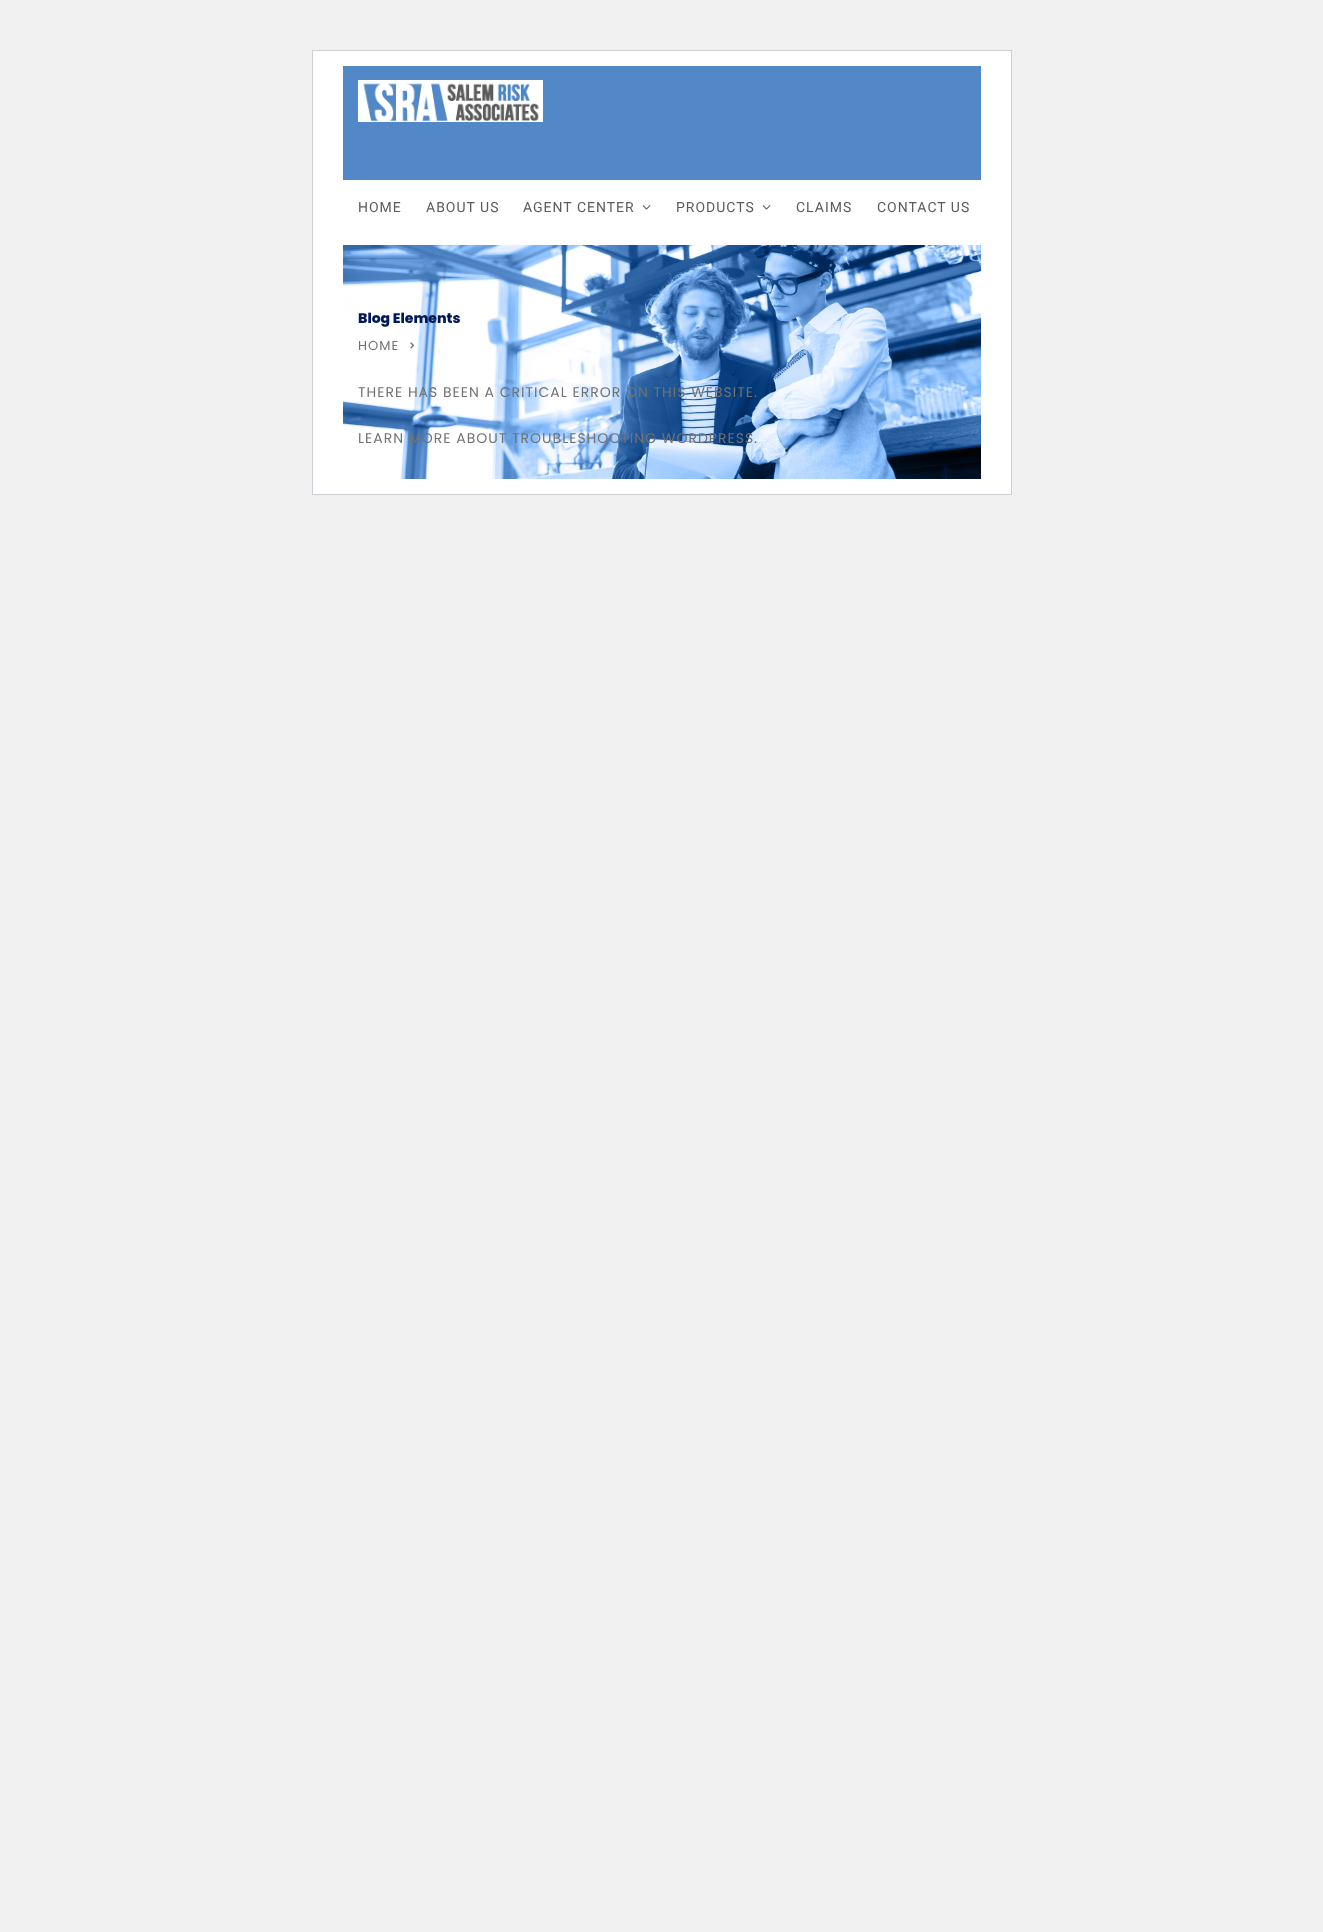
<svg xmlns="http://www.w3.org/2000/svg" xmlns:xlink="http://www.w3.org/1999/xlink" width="1323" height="1932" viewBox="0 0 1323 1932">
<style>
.cls-1{font:14px Roboto;letter-spacing:1px;fill:#5b5b5b}
.cls-2{font:800 14px Poppins;fill:#001a57}
.cls-3{font:13px Poppins;letter-spacing:1px;fill:#727272}
.cls-4{font:14px Poppins;letter-spacing:1px;fill:#727272}
</style>
<rect width="100%" height="100%" fill="#f1f1f1"/>
<rect fill="#ffffff" stroke="#ccd0d4" x="312.5" y="50.5" width="699" height="444"/>
<rect fill="#5288c7" x="343" y="66" width="638" height="114"/>
<image xlink:href="image0.png" x="358" y="80" width="185" height="42"/>
<image xlink:href="image1.png" x="642" y="205" width="9" height="5"/>
<image xlink:href="image1.png" x="762" y="205" width="9" height="5"/>
<image xlink:href="image2.png" x="343" y="245" width="638" height="234"/>
<image xlink:href="image3.png" x="410" y="342" width="5" height="7"/>
<text class="cls-1" x="358" y="212">HOME</text>
<text class="cls-1" x="426" y="212">ABOUT US</text>
<text class="cls-1" x="523" y="212">AGENT CENTER</text>
<text class="cls-1" x="676" y="212">PRODUCTS</text>
<text class="cls-1" x="796" y="212">CLAIMS</text>
<text class="cls-1" x="877" y="212">CONTACT US</text>
<text class="cls-2" x="358" y="323">Blog Elements</text>
<text class="cls-3" x="358" y="350">HOME</text>
<text class="cls-4" x="358" y="397">THERE HAS BEEN A CRITICAL ERROR ON THIS WEBSITE.</text>
<text class="cls-4" x="358" y="443">LEARN MORE ABOUT TROUBLESHOOTING WORDPRESS.</text>
</svg>
